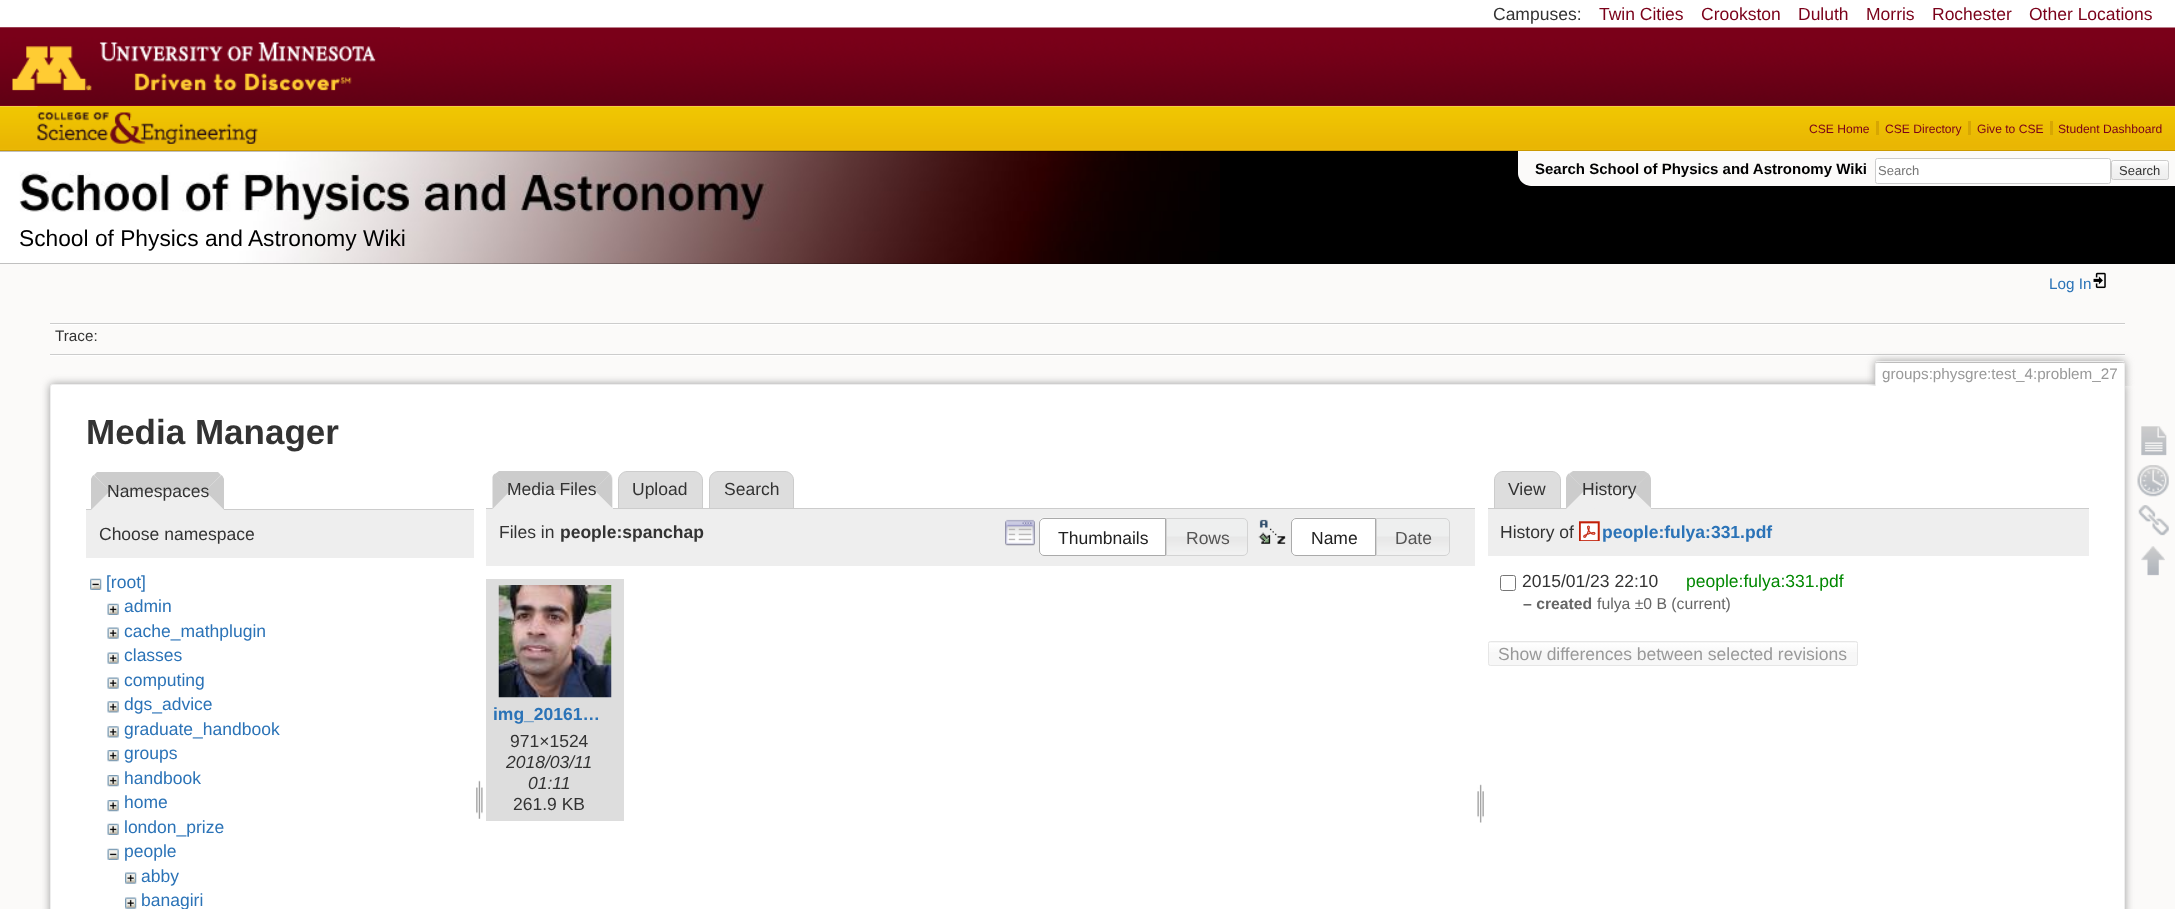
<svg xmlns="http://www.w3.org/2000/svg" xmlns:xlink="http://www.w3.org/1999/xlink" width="2175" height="909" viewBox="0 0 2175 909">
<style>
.cls-1{font:17.5px Liberation Sans;fill:#333333}
.cls-2{font:17.5px Liberation Sans;fill:#7a0019}
.cls-3{font:12.1px Liberation Sans;fill:#7a0019}
.cls-4{font:bold 15px Liberation Sans;fill:#000000}
.cls-5{font:13px Liberation Sans;fill:#757575}
.cls-6{font:13px Liberation Sans;fill:#333333}
.cls-7{font:22.75px Liberation Sans;fill:#000000}
.cls-8{font:15.25px Liberation Sans;fill:#2b73b7}
.cls-9{font:15.25px Liberation Sans;fill:#333333}
.cls-10{font:15.25px Liberation Sans;fill:#999999}
.cls-11{font:bold 35px Liberation Sans;fill:#333333}
.cls-12{font:17.5px Liberation Sans;fill:#2b73b7}
.cls-13{font:bold 17.5px Liberation Sans;fill:#333333}
.cls-14{font:17.5px Liberation Sans;fill:#212121}
.cls-15{font:17.5px Liberation Sans;fill:#555555}
.cls-16{font:bold 17.5px Liberation Sans;fill:#2b73b7}
.cls-17{font:italic 17.5px Liberation Sans;fill:#333333}
.cls-18{font:17.5px Liberation Sans;fill:#008800}
.cls-19{font:bold 15.75px Liberation Sans;fill:#666666}
.cls-20{font:15.75px Liberation Sans;fill:#666666}
.cls-21{font:17.5px Liberation Sans;fill:#999999}
</style>
<defs>
<clipPath id="clip1"><rect x="2111" y="160" width="58" height="20" rx="2.5"/></clipPath>
<linearGradient id="g1" gradientUnits="userSpaceOnUse" x1="2140" y1="161" x2="2140" y2="179"><stop offset="0" stop-color="#ffffff"/><stop offset="0.3" stop-color="#f4f4f4"/><stop offset="0.99" stop-color="#eeeeee"/><stop offset="0.99" stop-color="#cccccc"/></linearGradient>
<clipPath id="clip2"><rect x="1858" y="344" width="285" height="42"/></clipPath>
<linearGradient id="g2" gradientUnits="userSpaceOnUse" x1="1673" y1="643" x2="1673" y2="665"><stop offset="0" stop-color="#ffffff"/><stop offset="0.3" stop-color="#fafafa"/><stop offset="0.99" stop-color="#f7f7f7"/><stop offset="0.99" stop-color="#e6e6e6"/></linearGradient>
</defs>
<rect width="100%" height="100%" fill="#fbfaf9"/>
<rect fill="#ffffff" x="0" y="0" width="2175" height="28"/>
<rect fill="#7a0019" x="0" y="105" width="2175" height="1"/>
<image xlink:href="image0.png" x="0" y="27" width="2175" height="78"/>
<image xlink:href="image1.png" x="0" y="27" width="400" height="64"/>
<image xlink:href="image2.png" x="0" y="106" width="2175" height="44"/>
<rect fill="#cb9901" x="0" y="150" width="2175" height="1"/>
<image xlink:href="image3.png" x="37" y="106" width="233" height="38"/>
<rect fill="#d7a602" x="1876" y="121" width="3" height="14"/>
<rect fill="#d7a602" x="1968" y="121" width="3" height="14"/>
<rect fill="#d7a602" x="2050" y="121" width="3" height="14"/>
<rect fill="#000000" x="0" y="151" width="2175" height="113"/>
<image xlink:href="image4.png" x="0" y="151" width="1220" height="113"/>
<path fill="#fbfaf9" d="M1518 151H2175V186H1531C1524 186 1518 180 1518 173Z"/>
<rect fill="#ffffff" stroke="#cccccc" x="1875.5" y="158.5" width="235" height="25" rx="2"/>
<g clip-path="url(#clip1)">
<rect fill="url(#g1)" x="2111" y="161" width="58" height="18"/>
</g>
<rect fill="none" stroke="#cccccc" x="2111.5" y="160.5" width="57" height="19" rx="2"/>
<image xlink:href="image5.png" x="2093" y="272" width="13" height="17"/>
<rect fill="#cccccc" x="50" y="323" width="2075" height="1"/>
<rect fill="#ffffff" x="50" y="355" width="2075" height="1"/>
<rect fill="#ffffff" x="50" y="324" width="2075" height="1"/>
<rect fill="#cccccc" x="50" y="354" width="2075" height="1"/>
<rect fill="#999999" filter="blur(4.5px)" x="50" y="384" width="2075" height="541" rx="2.5"/>
<rect fill="#ffffff" stroke="#eeeeee" x="50.5" y="384.5" width="2074" height="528" rx="2"/>
<g clip-path="url(#clip2)">
<rect fill="#999999" filter="blur(4px)" x="1875" y="361" width="250" height="25" rx="2.5"/>
</g>
<path fill="#ffffff" d="M1877 363H2123C2123.5 363 2124 363.5 2124 364V386H1876V364C1876 363.5 1876.5 363 1877 363Z"/>
<rect fill="#eeeeee" x="1876" y="361" width="248" height="1"/>
<rect fill="#eeeeee" x="2124" y="363" width="1" height="23"/>
<rect fill="#eeeeee" x="1875" y="363" width="1" height="23"/>
<rect fill="#cccccc" x="86" y="509" width="388" height="1"/>
<path fill="#eeeeee" d="M100 473H215C220 473 224 477 224 482V510H91V482C91 477 95 473 100 473Z"/>
<path fill="#cccccc" d="M218 472H97L94 475L110 491H205L221 475Z"/>
<path fill="#cccccc" d="M221.5 475L205 491L224 510V479C223.5 477.5 222.5 476 221.5 475Z"/>
<path fill="#eeeeee" d="M224 510L205 491H110L91 510Z"/>
<path fill="#cccccc" d="M91 510L110 491L93.5 475C92.5 476 91.5 477.5 91 479Z"/>
<rect fill="#eeeeee" x="86" y="510" width="388" height="48"/>
<image xlink:href="image6.png" x="90" y="578" width="12" height="12"/>
<image xlink:href="image7.png" x="107" y="603" width="12" height="12"/>
<image xlink:href="image8.png" x="107" y="627" width="12" height="12"/>
<image xlink:href="image8.png" x="107" y="652" width="12" height="12"/>
<image xlink:href="image8.png" x="107" y="677" width="12" height="12"/>
<image xlink:href="image9.png" x="107" y="701" width="12" height="12"/>
<image xlink:href="image9.png" x="107" y="726" width="12" height="12"/>
<image xlink:href="image10.png" x="107" y="750" width="12" height="12"/>
<image xlink:href="image11.png" x="107" y="775" width="12" height="12"/>
<image xlink:href="image10.png" x="107" y="800" width="12" height="12"/>
<image xlink:href="image7.png" x="107" y="823" width="12" height="12"/>
<image xlink:href="image12.png" x="107" y="848" width="12" height="12"/>
<image xlink:href="image13.png" x="125" y="872" width="12" height="12"/>
<image xlink:href="image13.png" x="125" y="897" width="12" height="12"/>
<image xlink:href="image14.png" x="476" y="780" width="7" height="39"/>
<path fill="#dddddd" stroke="#cccccc" d="M627 471.5H694C698.5 471.5 702.5 475.5 702.5 480V508.5H618.5V480C618.5 475.5 622.5 471.5 627 471.5Z"/>
<path fill="#dddddd" stroke="#cccccc" d="M718 471.5H785C789.5 471.5 793.5 475.5 793.5 480V508.5H709.5V480C709.5 475.5 713.5 471.5 718 471.5Z"/>
<rect fill="#cccccc" x="486" y="508" width="989" height="1"/>
<path fill="#eeeeee" d="M502 471H604C609 471 613 475 613 480V509H493V480C493 475 497 471 502 471Z"/>
<path fill="#cccccc" d="M606 471H499L495 474L511 490H594L610 474C609 473 608 472 606 471Z"/>
<path fill="#cccccc" d="M610 474L594 490L612 508V480C612 477.5 611.5 475.5 610 474Z"/>
<path fill="#eeeeee" d="M612 508L594 490H511L492 509H612Z"/>
<path fill="#cccccc" d="M492.5 509L511 490L495 473.5C493.5 474.5 493 475.5 492.5 477Z"/>
<rect fill="#eeeeee" x="486" y="509" width="989" height="57"/>
<image xlink:href="image15.png" x="1005" y="519" width="30" height="27"/>
<image xlink:href="image16.png" x="1039" y="517" width="127" height="39"/>
<path fill="none" stroke="#aaaaaa" d="M1044 518.5H1165.5V555.5H1044C1041.5 555.5 1039.5 553.5 1039.5 551V523C1039.5 520.5 1041.5 518.5 1044 518.5Z"/>
<image xlink:href="image17.png" x="1167" y="518" width="80" height="38"/>
<path fill="none" stroke="#d3d3d3" d="M1166.5 518.5H1243C1245.5 518.5 1247.5 520.5 1247.5 523V551C1247.5 553.5 1245.5 555.5 1243 555.5H1166.5Z"/>
<image xlink:href="image18.png" x="1258" y="519" width="28" height="25"/>
<path fill="#ffffff" d="M1296 518H1376V556H1296C1293 556 1291 554 1291 551V523C1291 520 1293 518 1296 518Z"/>
<image xlink:href="image19.png" x="1292" y="517" width="84" height="3"/>
<path fill="none" stroke="#aaaaaa" d="M1296 518.5H1375.5V555.5H1296C1293.5 555.5 1291.5 553.5 1291.5 551V523C1291.5 520.5 1293.5 518.5 1296 518.5Z"/>
<image xlink:href="image20.png" x="1377" y="518" width="73" height="38"/>
<path fill="none" stroke="#d3d3d3" d="M1376.5 518.5H1445C1447.5 518.5 1449.5 520.5 1449.5 523V551C1449.5 553.5 1447.5 555.5 1445 555.5H1376.5Z"/>
<rect fill="#dddddd" x="486" y="579" width="138" height="242"/>
<image xlink:href="image21.png" x="498" y="585" width="114" height="113"/>
<image xlink:href="image22.png" x="1477" y="784" width="7" height="39"/>
<path fill="#dddddd" stroke="#cccccc" d="M1503 471.5H1552C1556.5 471.5 1560.5 475.5 1560.5 480V508.5H1494.5V480C1494.5 475.5 1498.5 471.5 1503 471.5Z"/>
<rect fill="#cccccc" x="1488" y="508" width="601" height="1"/>
<path fill="#eeeeee" d="M1575 471H1642C1647 471 1651 475 1651 480V509H1566V480C1566 475 1570 471 1575 471Z"/>
<path fill="#cccccc" d="M1644 471H1573L1569 474L1585 490H1632L1649 474C1647 473 1646 472 1644 471Z"/>
<path fill="#cccccc" d="M1648.5 474L1632.5 490L1651 508.5V480C1651 477.5 1650 475.5 1648.5 474Z"/>
<path fill="#eeeeee" d="M1651 508L1632 490H1585L1566 509Z"/>
<path fill="#cccccc" d="M1566 509L1585 490L1568.5 473.5C1567.5 475 1566.5 476 1566 478Z"/>
<rect fill="#eeeeee" x="1488" y="509" width="601" height="47"/>
<image xlink:href="image23.png" x="1579" y="521" width="21" height="20"/>
<rect fill="none" stroke="#767676" x="1500.5" y="575.5" width="15" height="15" rx="2"/>
<rect fill="#f7f7f7" x="1488" y="641" width="370" height="25" rx="2.5"/>
<rect fill="url(#g2)" x="1488" y="643" width="370" height="9"/>
<rect fill="none" stroke="#e6e6e6" x="1488.5" y="641.5" width="369" height="24" rx="2"/>
<image xlink:href="image24.png" x="2141" y="426" width="26" height="30"/>
<image xlink:href="image25.png" x="2137" y="465" width="32" height="32"/>
<image xlink:href="image26.png" x="2138" y="505" width="31" height="31"/>
<image xlink:href="image27.png" x="2141" y="546" width="24" height="30"/>
<text class="cls-1" x="1493" y="20">Campuses:</text>
<text class="cls-2" x="1599" y="20">Twin Cities</text>
<text class="cls-2" x="1701" y="20">Crookston</text>
<text class="cls-2" x="1798" y="20">Duluth</text>
<text class="cls-2" x="1866" y="20">Morris</text>
<text class="cls-2" x="1932" y="20">Rochester</text>
<text class="cls-2" x="2029" y="20">Other Locations</text>
<text class="cls-3" x="1809" y="133">CSE Home</text>
<text class="cls-3" x="1885" y="133">CSE Directory</text>
<text class="cls-3" x="1977" y="133">Give to CSE</text>
<text class="cls-3" x="2058" y="133">Student Dashboard</text>
<text class="cls-4" x="1535" y="174">Search School of Physics and Astronomy Wiki</text>
<text class="cls-5" x="1878" y="175">Search</text>
<text class="cls-6" x="2119" y="175">Search</text>
<text class="cls-7" x="19" y="246">School of Physics and Astronomy Wiki</text>
<text class="cls-8" x="2049" y="289">Log In</text>
<text class="cls-9" x="55" y="341">Trace:</text>
<text class="cls-10" x="1882" y="379">groups:physgre:test_4:problem_27</text>
<text class="cls-11" x="86" y="444">Media Manager</text>
<text class="cls-1" x="107" y="497">Namespaces</text>
<text class="cls-1" x="99" y="540">Choose namespace</text>
<text class="cls-12" x="106" y="588">[root]</text>
<text class="cls-12"><tspan x="124" y="612">admin</tspan><tspan x="124" y="637">cache_mathplugin</tspan><tspan x="124" y="661">classes</tspan><tspan x="124" y="686">computing</tspan><tspan x="124" y="710">dgs_advice</tspan><tspan x="124" y="735">graduate_handbook</tspan><tspan x="124" y="759">groups</tspan><tspan x="124" y="784">handbook</tspan><tspan x="124" y="808">home</tspan><tspan x="124" y="833">london_prize</tspan><tspan x="124" y="857">people</tspan></text>
<text class="cls-12"><tspan x="141" y="882">abby</tspan><tspan x="141" y="906">banagiri</tspan></text>
<text class="cls-1" x="507" y="495">Media Files</text>
<text class="cls-1" x="632" y="495">Upload</text>
<text class="cls-1" x="724" y="495">Search</text>
<text class="cls-1" x="499" y="538">Files in</text>
<text class="cls-13" x="560" y="538">people:spanchap</text>
<text class="cls-14" x="1058" y="544">Thumbnails</text>
<text class="cls-15" x="1186" y="544">Rows</text>
<text class="cls-14" x="1311" y="544">Name</text>
<text class="cls-15" x="1395" y="544">Date</text>
<text class="cls-16" x="493" y="720">img_20161…</text>
<text class="cls-1" x="510" y="747">971×1524</text>
<text class="cls-17" x="506" y="768">2018/03/11</text>
<text class="cls-17" x="528" y="789">01:11</text>
<text class="cls-1" x="513" y="810">261.9 KB</text>
<text class="cls-1" x="1508" y="495">View</text>
<text class="cls-1" x="1582" y="495">History</text>
<text class="cls-1" x="1500" y="538">History of</text>
<text class="cls-16" x="1602" y="538">people:fulya:331.pdf</text>
<text class="cls-1" x="1522" y="587">2015/01/23 22:10</text>
<text class="cls-18" x="1686" y="587">people:fulya:331.pdf</text>
<text class="cls-19" x="1523" y="609">– created</text>
<text class="cls-20" x="1597" y="609">fulya ±0 B (current)</text>
<text class="cls-21" x="1498" y="660">Show differences between selected revisions</text>
</svg>
